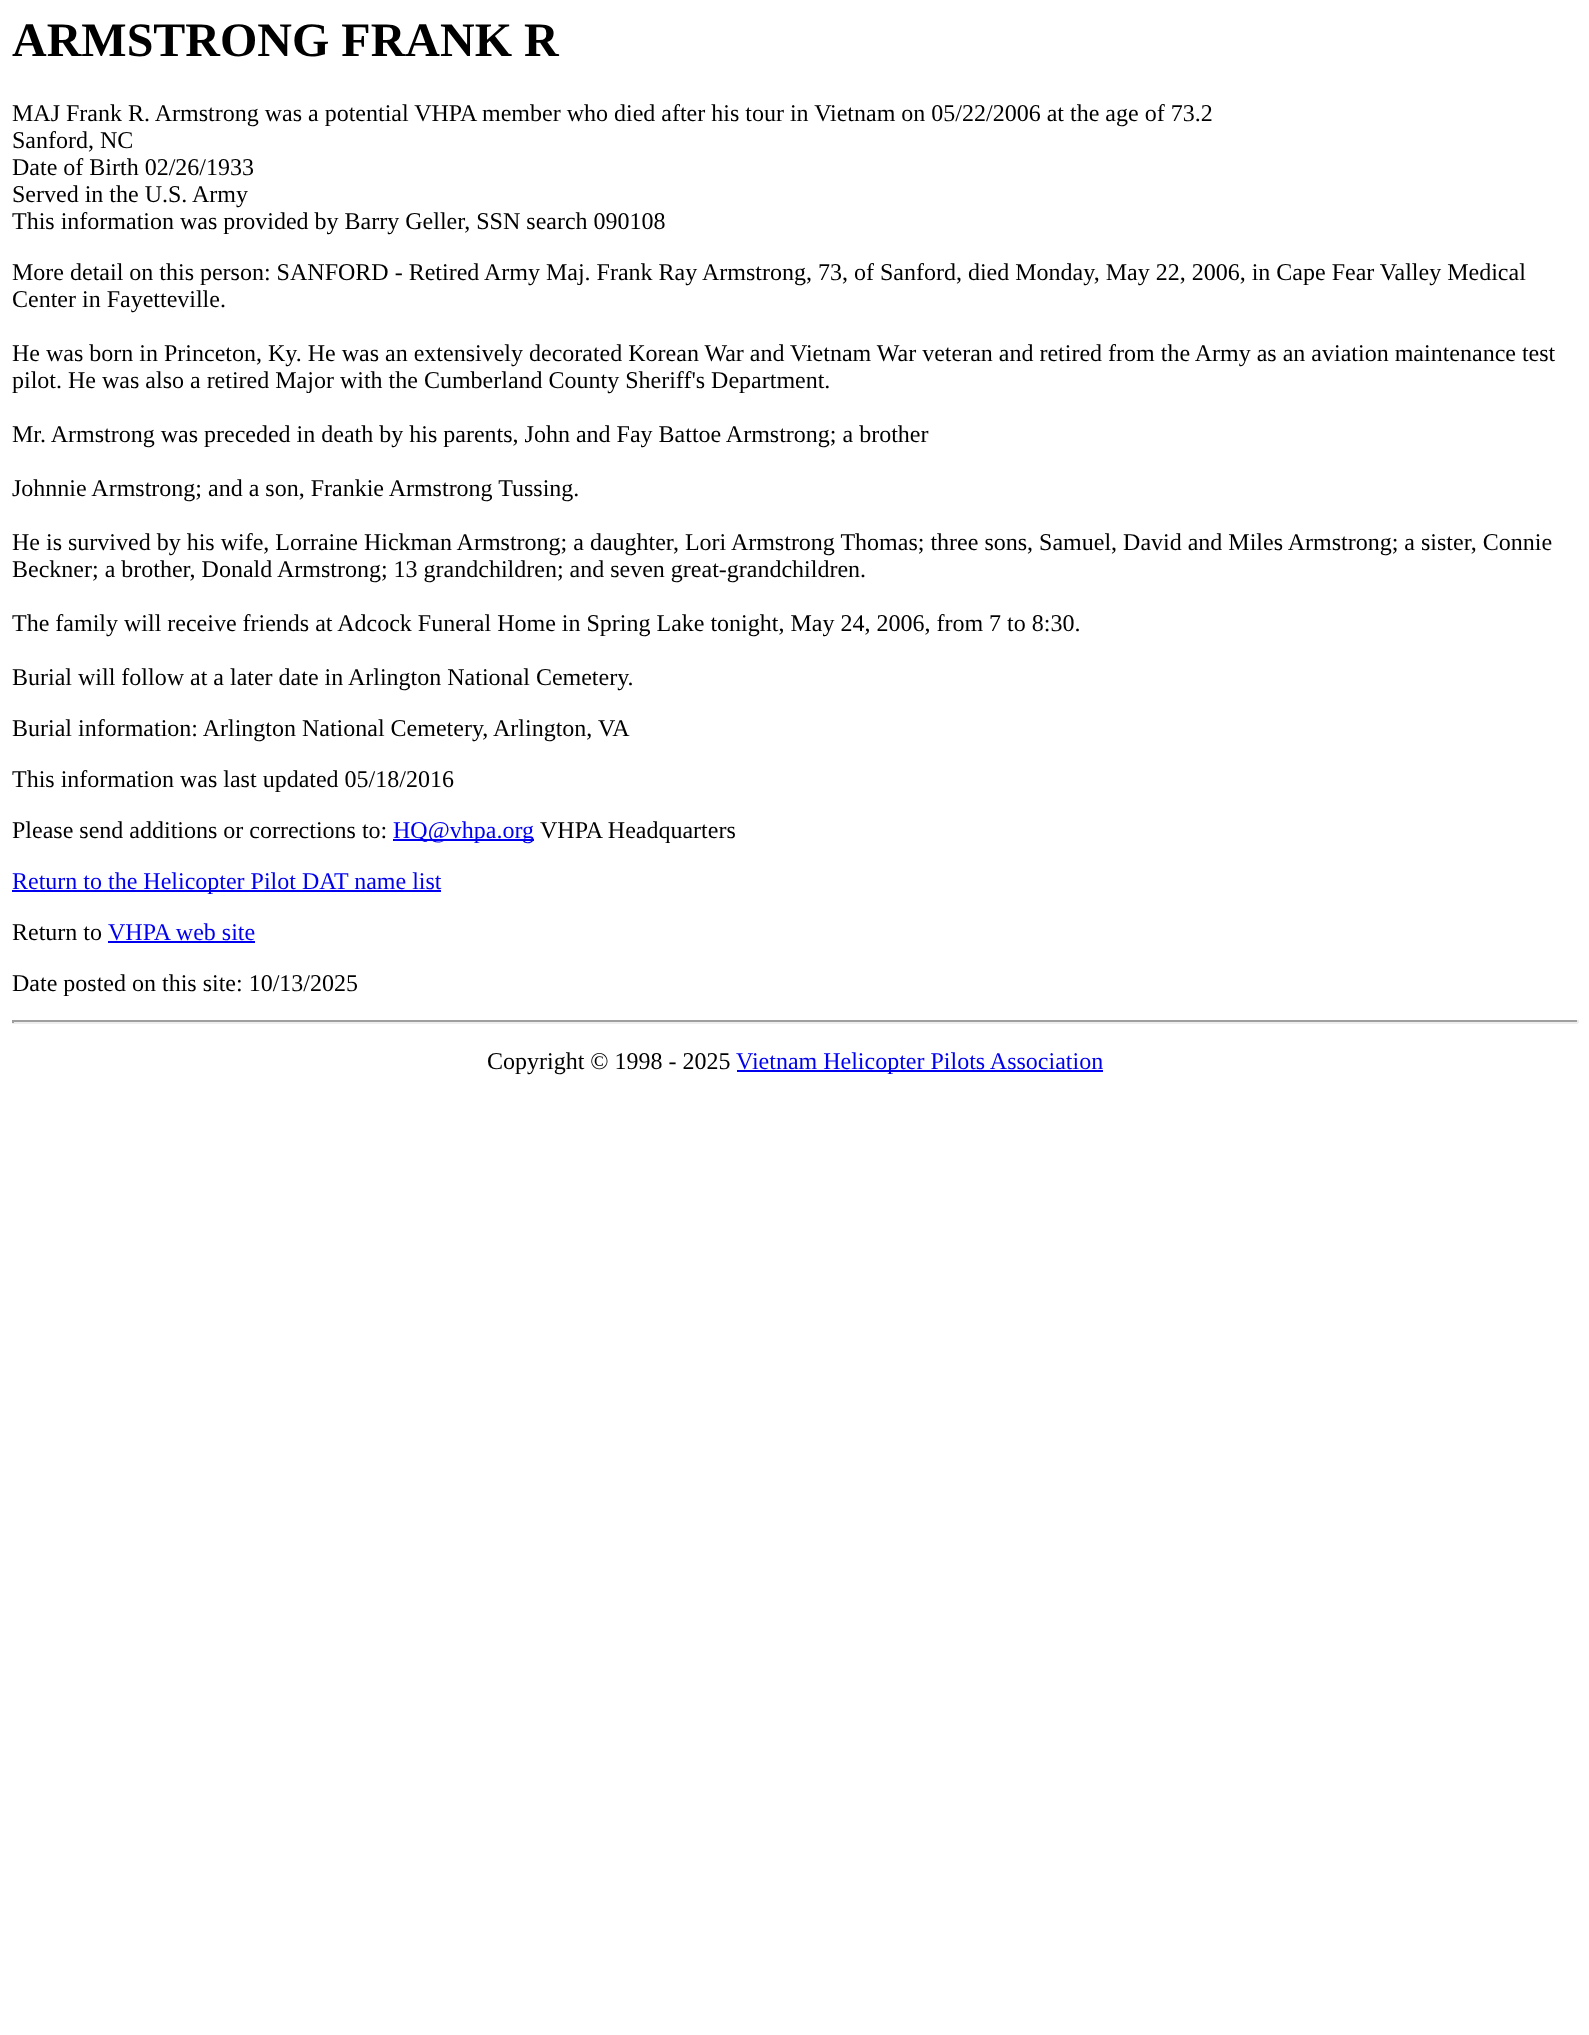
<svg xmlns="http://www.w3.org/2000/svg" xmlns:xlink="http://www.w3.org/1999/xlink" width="1589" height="2035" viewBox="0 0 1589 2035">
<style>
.cls-1{font:bold 48px Liberation Serif;fill:#000000}
.cls-2{font:24px Liberation Serif;fill:#000000}
.cls-3{font:24px Liberation Serif;fill:#0000ee}
</style>
<rect width="100%" height="100%" fill="#ffffff"/>
<rect fill="#0000ee" x="393" y="839" width="141" height="2"/>
<rect fill="#0000ee" x="12" y="890" width="429" height="2"/>
<rect fill="#0000ee" x="108" y="941" width="147" height="2"/>
<rect fill="#9f9f9f" x="12" y="1020" width="1566" height="2"/>
<rect fill="#eeeeee" x="1577" y="1020" width="2" height="3"/>
<rect fill="#eeeeee" x="12" y="1022" width="1566" height="2"/>
<rect fill="#9f9f9f" x="12" y="1020" width="2" height="3"/>
<rect fill="#0000ee" x="737" y="1070" width="366" height="2"/>
<text class="cls-1" x="12" y="56">ARMSTRONG FRANK R</text>
<text class="cls-2"><tspan x="12" y="121">MAJ Frank R. Armstrong was a potential VHPA member who died after his tour in Vietnam on 05/22/2006 at the age of 73.2</tspan><tspan x="12" y="148">Sanford, NC</tspan><tspan x="12" y="175">Date of Birth 02/26/1933</tspan><tspan x="12" y="202">Served in the U.S. Army</tspan><tspan x="12" y="229">This information was provided by Barry Geller, SSN search 090108</tspan></text>
<text class="cls-2"><tspan x="12" y="280">More detail on this person: SANFORD - Retired Army Maj. Frank Ray Armstrong, 73, of Sanford, died Monday, May 22, 2006, in Cape Fear Valley Medical</tspan><tspan x="12" y="307">Center in Fayetteville.</tspan></text>
<text class="cls-2"><tspan x="12" y="361">He was born in Princeton, Ky. He was an extensively decorated Korean War and Vietnam War veteran and retired from the Army as an aviation maintenance test</tspan><tspan x="12" y="388">pilot. He was also a retired Major with the Cumberland County Sheriff's Department.</tspan></text>
<text class="cls-2" x="12" y="442">Mr. Armstrong was preceded in death by his parents, John and Fay Battoe Armstrong; a brother</text>
<text class="cls-2" x="12" y="496">Johnnie Armstrong; and a son, Frankie Armstrong Tussing.</text>
<text class="cls-2"><tspan x="12" y="550">He is survived by his wife, Lorraine Hickman Armstrong; a daughter, Lori Armstrong Thomas; three sons, Samuel, David and Miles Armstrong; a sister, Connie</tspan><tspan x="12" y="577">Beckner; a brother, Donald Armstrong; 13 grandchildren; and seven great-grandchildren.</tspan></text>
<text class="cls-2" x="12" y="631">The family will receive friends at Adcock Funeral Home in Spring Lake tonight, May 24, 2006, from 7 to 8:30.</text>
<text class="cls-2" x="12" y="685">Burial will follow at a later date in Arlington National Cemetery.</text>
<text class="cls-2" x="12" y="736">Burial information: Arlington National Cemetery, Arlington, VA</text>
<text class="cls-2" x="12" y="787">This information was last updated 05/18/2016</text>
<text class="cls-2" x="12" y="838">Please send additions or corrections to:</text>
<text class="cls-3" x="393" y="838">HQ@vhpa.org</text>
<text class="cls-2" x="540" y="838">VHPA Headquarters</text>
<text class="cls-3" x="12" y="889">Return to the Helicopter Pilot DAT name list</text>
<text class="cls-2" x="12" y="940">Return to</text>
<text class="cls-3" x="108" y="940">VHPA web site</text>
<text class="cls-2" x="12" y="991">Date posted on this site: 10/13/2025</text>
<text class="cls-2" x="487" y="1069">Copyright © 1998 - 2025</text>
<text class="cls-3" x="736" y="1069">Vietnam Helicopter Pilots Association</text>
</svg>
